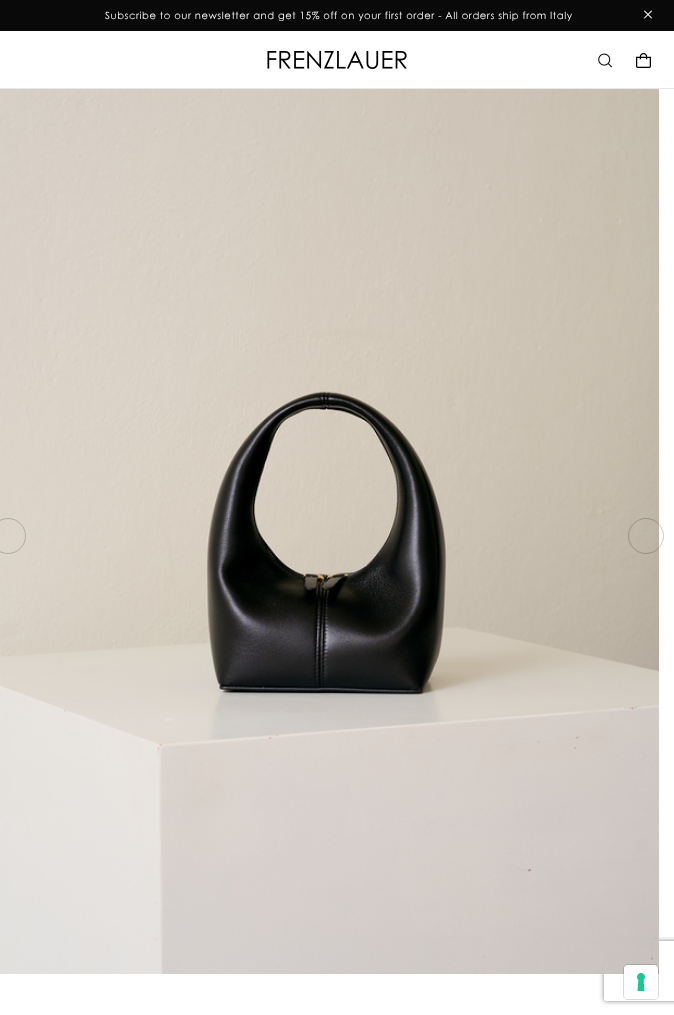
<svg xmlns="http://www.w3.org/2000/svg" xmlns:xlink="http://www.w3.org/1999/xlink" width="674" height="1015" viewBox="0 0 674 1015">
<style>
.cls-1{font:10px Century Gothic;letter-spacing:0.55px;fill:#ffffff}
</style>
<defs>
<clipPath id="clip1"><path d="M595 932H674V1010H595ZM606 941H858C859 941 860 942 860 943V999C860 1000 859 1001 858 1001H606C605 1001 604 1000 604 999V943C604 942 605 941 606 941Z" clip-rule="evenodd"/></clipPath>
</defs>
<rect width="100%" height="100%" fill="#ffffff"/>
<rect fill="#090909" x="0" y="0" width="674" height="31"/>
<image xlink:href="image0.png" x="644" y="10" width="8" height="9"/>
<image xlink:href="image1.png" x="267" y="51" width="140" height="18"/>
<image xlink:href="image2.png" x="598" y="53" width="14" height="15"/>
<image xlink:href="image3.png" x="636" y="53" width="15" height="15"/>
<rect fill="#e8e8e8" x="0" y="88" width="674" height="1"/>
<g clip-path="url(#clip1)">
<rect fill="#808080" filter="blur(2.5px)" x="604" y="941" width="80" height="60" rx="2"/>
</g>
<image xlink:href="image4.png" x="0" y="89" width="659" height="885"/>
<circle fill="none" stroke="#000000" stroke-opacity="0.2" cx="8" cy="536" r="17.5"/>
<circle fill="none" stroke="#000000" stroke-opacity="0.2" cx="646" cy="536" r="17.5"/>
<rect fill="none" stroke="#000000" stroke-opacity="0.15" x="623.5" y="964.5" width="35" height="35" rx="4.5"/>
<rect fill="#ffffff" x="624" y="965" width="34" height="34" rx="4"/>
<image xlink:href="image5.png" x="637" y="973" width="8" height="18"/>
<text class="cls-1" x="105" y="19">Subscribe to our newsletter and get 15% off on your first order - All orders ship from Italy</text>
</svg>
